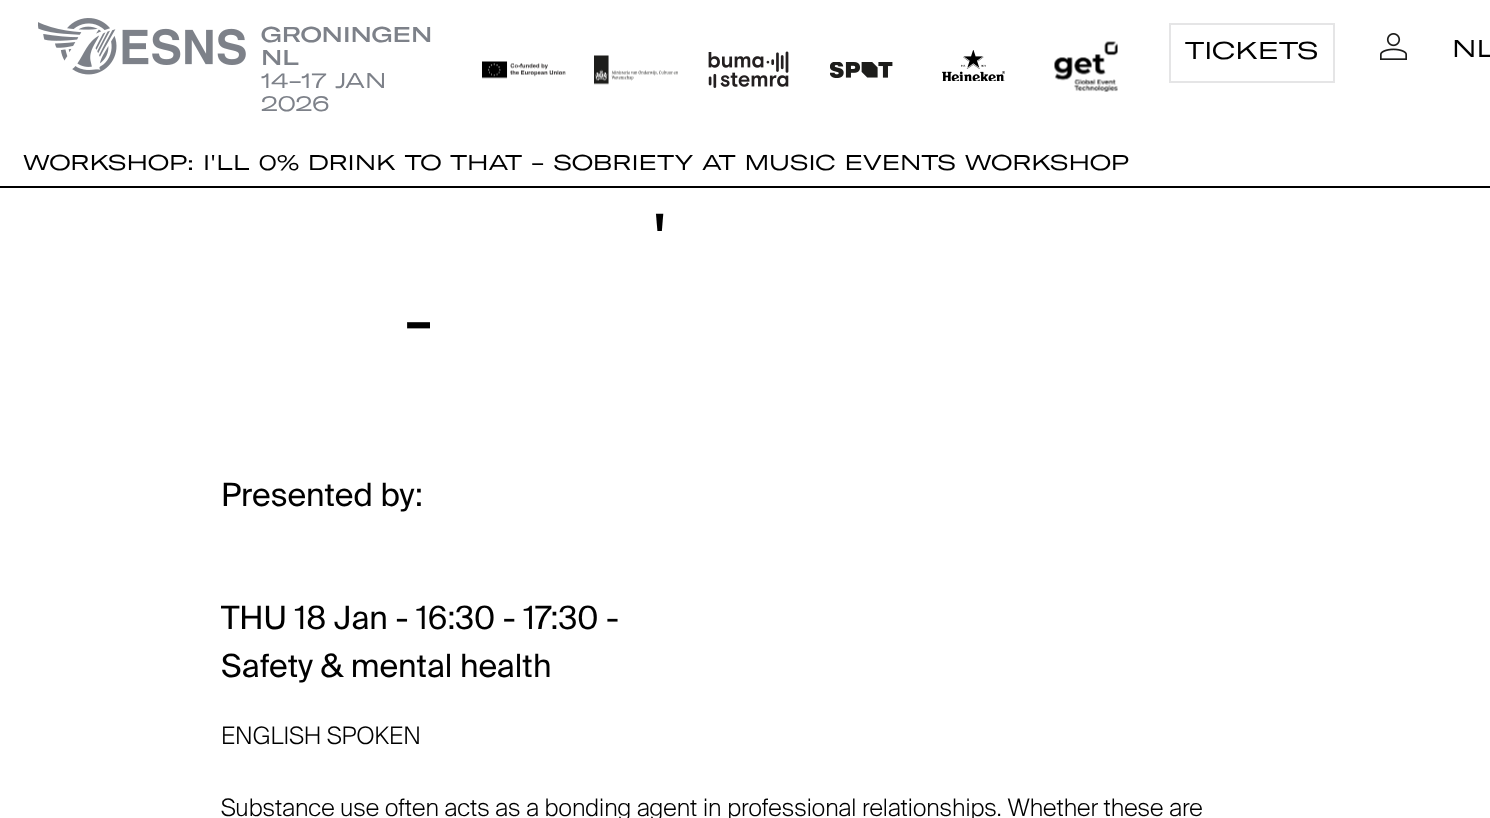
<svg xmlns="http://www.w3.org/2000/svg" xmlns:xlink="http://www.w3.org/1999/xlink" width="1490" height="818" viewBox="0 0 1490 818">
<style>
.cls-1{font:500 21px GT America;fill:#7d8189}
.cls-2{font:21px GT America;fill:#7d8189}
.cls-3{font:24px GT America;fill:#000000}
.cls-4{font:21px GT America;fill:#000000}
.cls-5{font:72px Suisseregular;letter-spacing:-3px;fill:#000000}
.cls-6{font:32px Suisseregular;fill:#000000}
.cls-7{font:300 24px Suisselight;fill:#000000}
</style>
<rect width="100%" height="100%" fill="#ffffff"/>
<image xlink:href="image0.png" x="38" y="18" width="208" height="57"/>
<image xlink:href="image1.png" x="482" y="61" width="84" height="18"/>
<image xlink:href="image2.png" x="594" y="55" width="84" height="30"/>
<image xlink:href="image3.png" x="708" y="51" width="81" height="37"/>
<image xlink:href="image4.png" x="830" y="62" width="63" height="16"/>
<image xlink:href="image5.png" x="942" y="50" width="63" height="31"/>
<image xlink:href="image6.png" x="1054" y="41" width="64" height="51"/>
<rect fill="none" stroke="#e5e5e6" stroke-width="2" x="1170" y="24" width="164" height="58"/>
<image xlink:href="image7.png" x="1380" y="33" width="27" height="27"/>
<rect fill="#000000" x="0" y="186" width="1490" height="2"/>
<text class="cls-1"><tspan x="261" y="42">GRONINGEN</tspan><tspan x="261" y="65">NL</tspan></text>
<text class="cls-2"><tspan x="261" y="88">14-17 JAN</tspan><tspan x="261" y="111">2026</tspan></text>
<text class="cls-3" x="1185" y="59">TICKETS</text>
<text class="cls-3" x="1452" y="57">NL</text>
<text class="cls-4" x="23" y="170">WORKSHOP: I'LL 0% DRINK TO THAT - SOBRIETY AT MUSIC EVENTS WORKSHOP</text>
<text class="cls-5" x="654" y="266">'</text>
<text class="cls-5" x="404" y="345">-</text>
<text class="cls-6" x="221" y="506">Presented by:</text>
<text class="cls-6"><tspan x="221" y="629">THU 18 Jan - 16:30 - 17:30 -</tspan><tspan x="221" y="677">Safety &amp; mental health</tspan></text>
<text class="cls-7" x="221" y="744">ENGLISH SPOKEN</text>
<text class="cls-7" x="221" y="816">Substance use often acts as a bonding agent in professional relationships. Whether these are</text>
</svg>
